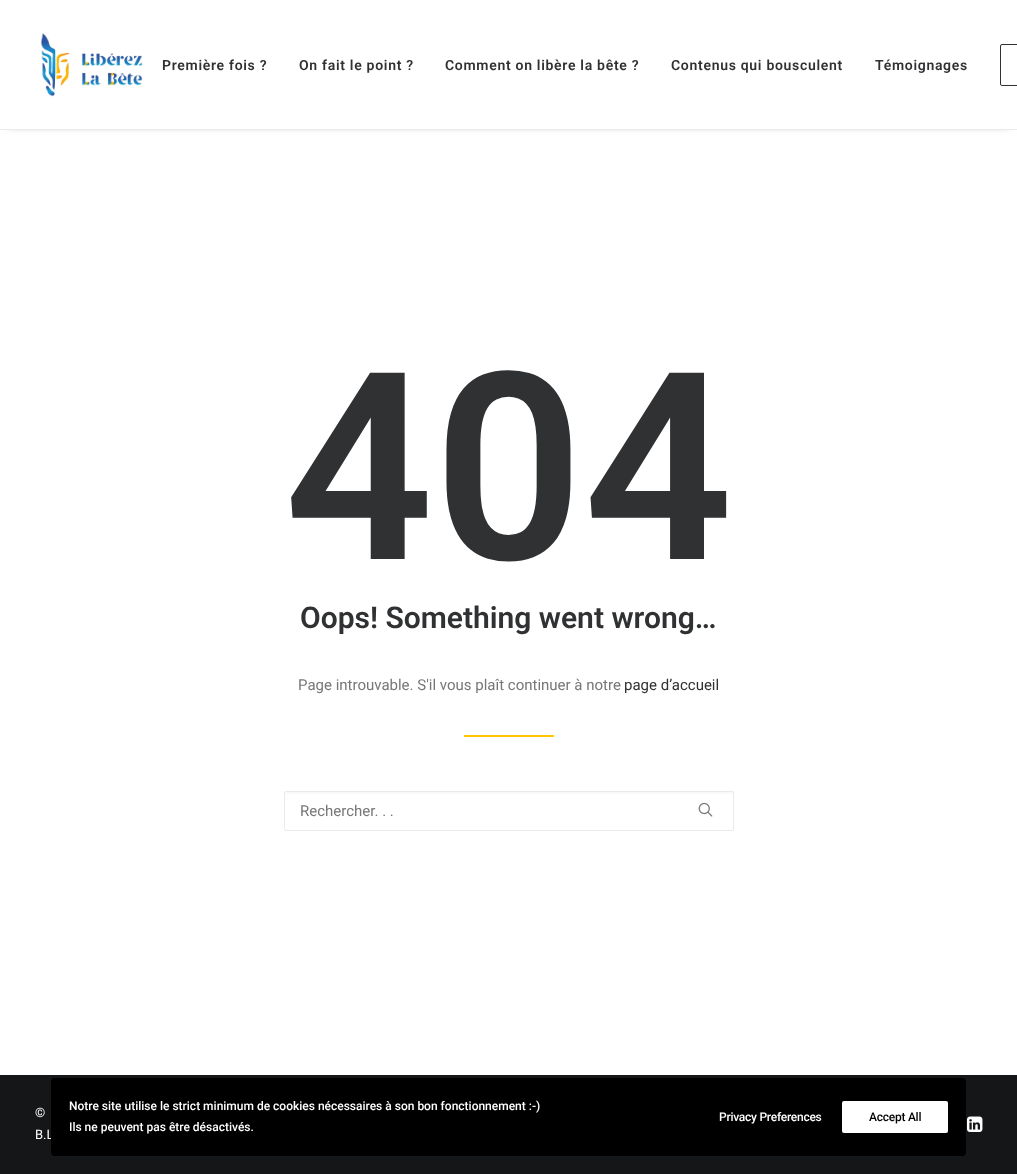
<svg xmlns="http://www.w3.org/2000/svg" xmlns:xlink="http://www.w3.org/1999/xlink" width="1017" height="1174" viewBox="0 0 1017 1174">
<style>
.cls-1{font:600 14px Roboto;letter-spacing:0.7px;fill:#303133}
.cls-2{font:600 262px Roboto;fill:#303133}
.cls-3{font:600 30px Roboto;fill:#303133}
.cls-4{font:15px Roboto;fill:#777777}
.cls-5{font:15px Roboto;fill:#303133}
.cls-6{font:13px Roboto;fill:#ffffff}
.cls-7{font:500 12px Roboto;fill:#ffffff}
.cls-8{font:500 12px Roboto;letter-spacing:-0.25px;fill:#ffffff}
.cls-9{font:500 12px Roboto;letter-spacing:-0.25px;fill:#000000}
</style>
<rect width="100%" height="100%" fill="#ffffff"/>
<rect fill="#000000" fill-opacity="0.6" filter="blur(5px)" x="9" y="14" width="1000" height="110"/>
<rect fill="#ffffff" x="0" y="3" width="1017" height="126"/>
<rect fill="#eaeaea" x="0" y="129" width="1017" height="1"/>
<image xlink:href="image0.png" x="40" y="33" width="103" height="64"/>
<rect fill="none" stroke="#303133" x="1000.5" y="44.5" width="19" height="41" rx="1.5"/>
<rect fill="#ffc700" x="464" y="735" width="90" height="2"/>
<path fill="#f9f9f9" d="M286 794H732C733 794 733 794 733 795C733 794 733 792 732 792H286H285V795C285 794 285 794 286 794Z"/>
<rect fill="none" stroke="#eaeaea" x="284.5" y="791.5" width="449" height="39" rx="1.5"/>
<image xlink:href="image1.png" x="698" y="802" width="15" height="15"/>
<rect fill="#141618" x="0" y="1075" width="1017" height="99"/>
<image xlink:href="image2.png" x="967" y="1116" width="16" height="16"/>
<text class="cls-1" x="162" y="70">Première fois ?</text>
<text class="cls-1" x="299" y="70">On fait le point ?</text>
<text class="cls-1" x="445" y="70">Comment on libère la bête ?</text>
<text class="cls-1" x="671" y="70">Contenus qui bousculent</text>
<text class="cls-1" x="875" y="70">Témoignages</text>
<text class="cls-2" x="284" y="559">404</text>
<text class="cls-3" x="300" y="628">Oops! Something went wrong…</text>
<text class="cls-4" x="298" y="690">Page introuvable. S'il vous plaît continuer à notre</text>
<text class="cls-5" x="624" y="690">page d’accueil</text>
<text class="cls-4" x="300" y="816">Rechercher. . .</text>
<text class="cls-6"><tspan x="35" y="1117">©</tspan><tspan x="35" y="1139">B.L</tspan></text>
<rect fill="#000000" x="51" y="1078" width="915" height="78" rx="4"/>
<text class="cls-7"><tspan x="69" y="1110">Notre site utilise le strict minimum de cookies nécessaires à son bon fonctionnement :-)</tspan><tspan x="69" y="1131">Ils ne peuvent pas être désactivés.</tspan></text>
<text class="cls-8" x="719" y="1121">Privacy Preferences</text>
<rect fill="#ffffff" x="842" y="1101" width="106" height="32" rx="2"/>
<text class="cls-9" x="869" y="1121">Accept All</text>
</svg>
